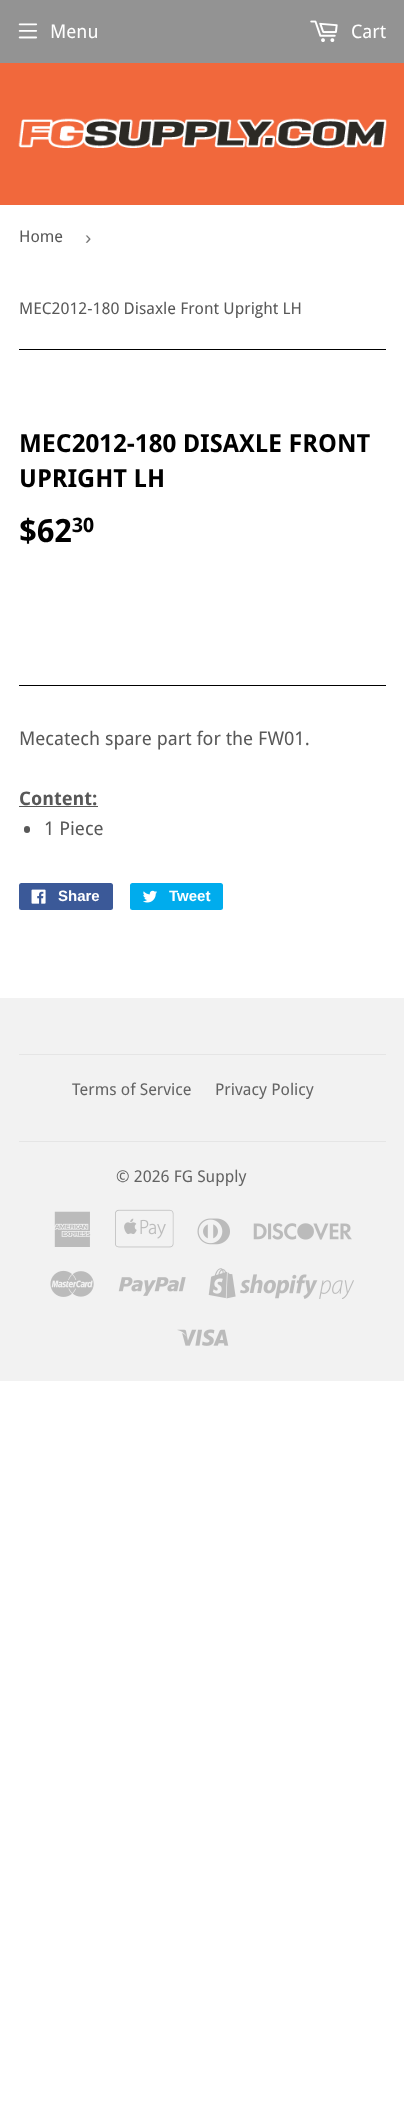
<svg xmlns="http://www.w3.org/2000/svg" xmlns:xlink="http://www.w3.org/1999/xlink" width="404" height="2120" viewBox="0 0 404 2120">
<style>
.cls-1{font:18.75px Droid Sans;fill:#ffffff}
.cls-2{font:16.25px Droid Sans;fill:#585858}
.cls-3{font:18.75px Liberation Sans;fill:#767676}
.cls-4{font:bold 25px Droid Sans;fill:#000000}
.cls-5{font:bold 32px Droid Sans;fill:#000000}
.cls-6{font:bold 20px Droid Sans;fill:#000000}
.cls-7{font:18.75px Droid Sans;fill:#585858}
.cls-8{font:bold 18.75px Droid Sans;fill:#585858}
.cls-9{font:bold 15px Liberation Sans;fill:#ffffff}
.cls-10{font:16.25px Droid Sans;fill:#636363}
</style>
<rect width="100%" height="100%" fill="#ffffff"/>
<rect fill="#939393" x="0" y="0" width="404" height="63"/>
<image xlink:href="image0.png" x="18" y="23" width="20" height="16"/>
<image xlink:href="image1.png" x="310" y="20" width="28" height="22"/>
<rect fill="#f1683c" x="0" y="63" width="404" height="142"/>
<image xlink:href="image2.png" x="18" y="118" width="369" height="30"/>
<rect fill="#000000" x="19" y="349" width="367" height="1"/>
<rect fill="#000000" x="19" y="685" width="367" height="1"/>
<rect fill="#585858" x="19" y="806" width="79" height="1"/>
<rect fill="#585858" x="24" y="826" width="6" height="7" rx="3"/>
<rect fill="#3b5998" x="19" y="883" width="94" height="27" rx="2.5"/>
<image xlink:href="image3.png" x="31" y="889" width="15" height="15"/>
<rect fill="#00aced" x="130" y="883" width="93" height="27" rx="2.5"/>
<image xlink:href="image4.png" x="143" y="890" width="14" height="13"/>
<rect fill="#f2f2f2" x="0" y="998" width="404" height="383"/>
<rect fill="#e5e5e5" x="19" y="1054" width="367" height="1"/>
<rect fill="#e5e5e5" x="19" y="1141" width="367" height="1"/>
<image xlink:href="image5.png" x="54" y="1211" width="37" height="36"/>
<image xlink:href="image6.png" x="115" y="1209" width="59" height="39"/>
<image xlink:href="image7.png" x="197" y="1218" width="33" height="27"/>
<image xlink:href="image8.png" x="253" y="1223" width="99" height="17"/>
<image xlink:href="image9.png" x="50" y="1270" width="44" height="27"/>
<image xlink:href="image10.png" x="118" y="1277" width="68" height="19"/>
<image xlink:href="image11.png" x="208" y="1268" width="146" height="31"/>
<image xlink:href="image12.png" x="177" y="1329" width="52" height="17"/>
<text class="cls-1" x="50" y="38">Menu</text>
<text class="cls-1" x="351" y="38">Cart</text>
<text class="cls-2" x="19" y="242">Home</text>
<text class="cls-3" x="85" y="244">›</text>
<text class="cls-2" x="19" y="314">MEC2012-180 Disaxle Front Upright LH</text>
<text class="cls-4"><tspan x="19" y="452">MEC2012-180 DISAXLE FRONT</tspan><tspan x="19" y="487">UPRIGHT LH</tspan></text>
<text class="cls-5" x="19" y="542">$62</text>
<text class="cls-6" x="72" y="532">30</text>
<text class="cls-7" x="19" y="745">Mecatech spare part for the FW01.</text>
<text class="cls-8" x="19" y="805">Content:</text>
<text class="cls-7" x="44" y="835">1 Piece</text>
<text class="cls-9" x="58" y="901">Share</text>
<text class="cls-9" x="169" y="901">Tweet</text>
<text class="cls-10" x="72" y="1095">Terms of Service</text>
<text class="cls-10" x="215" y="1095">Privacy Policy</text>
<text class="cls-10" x="116" y="1182">© 2026 FG Supply</text>
</svg>
